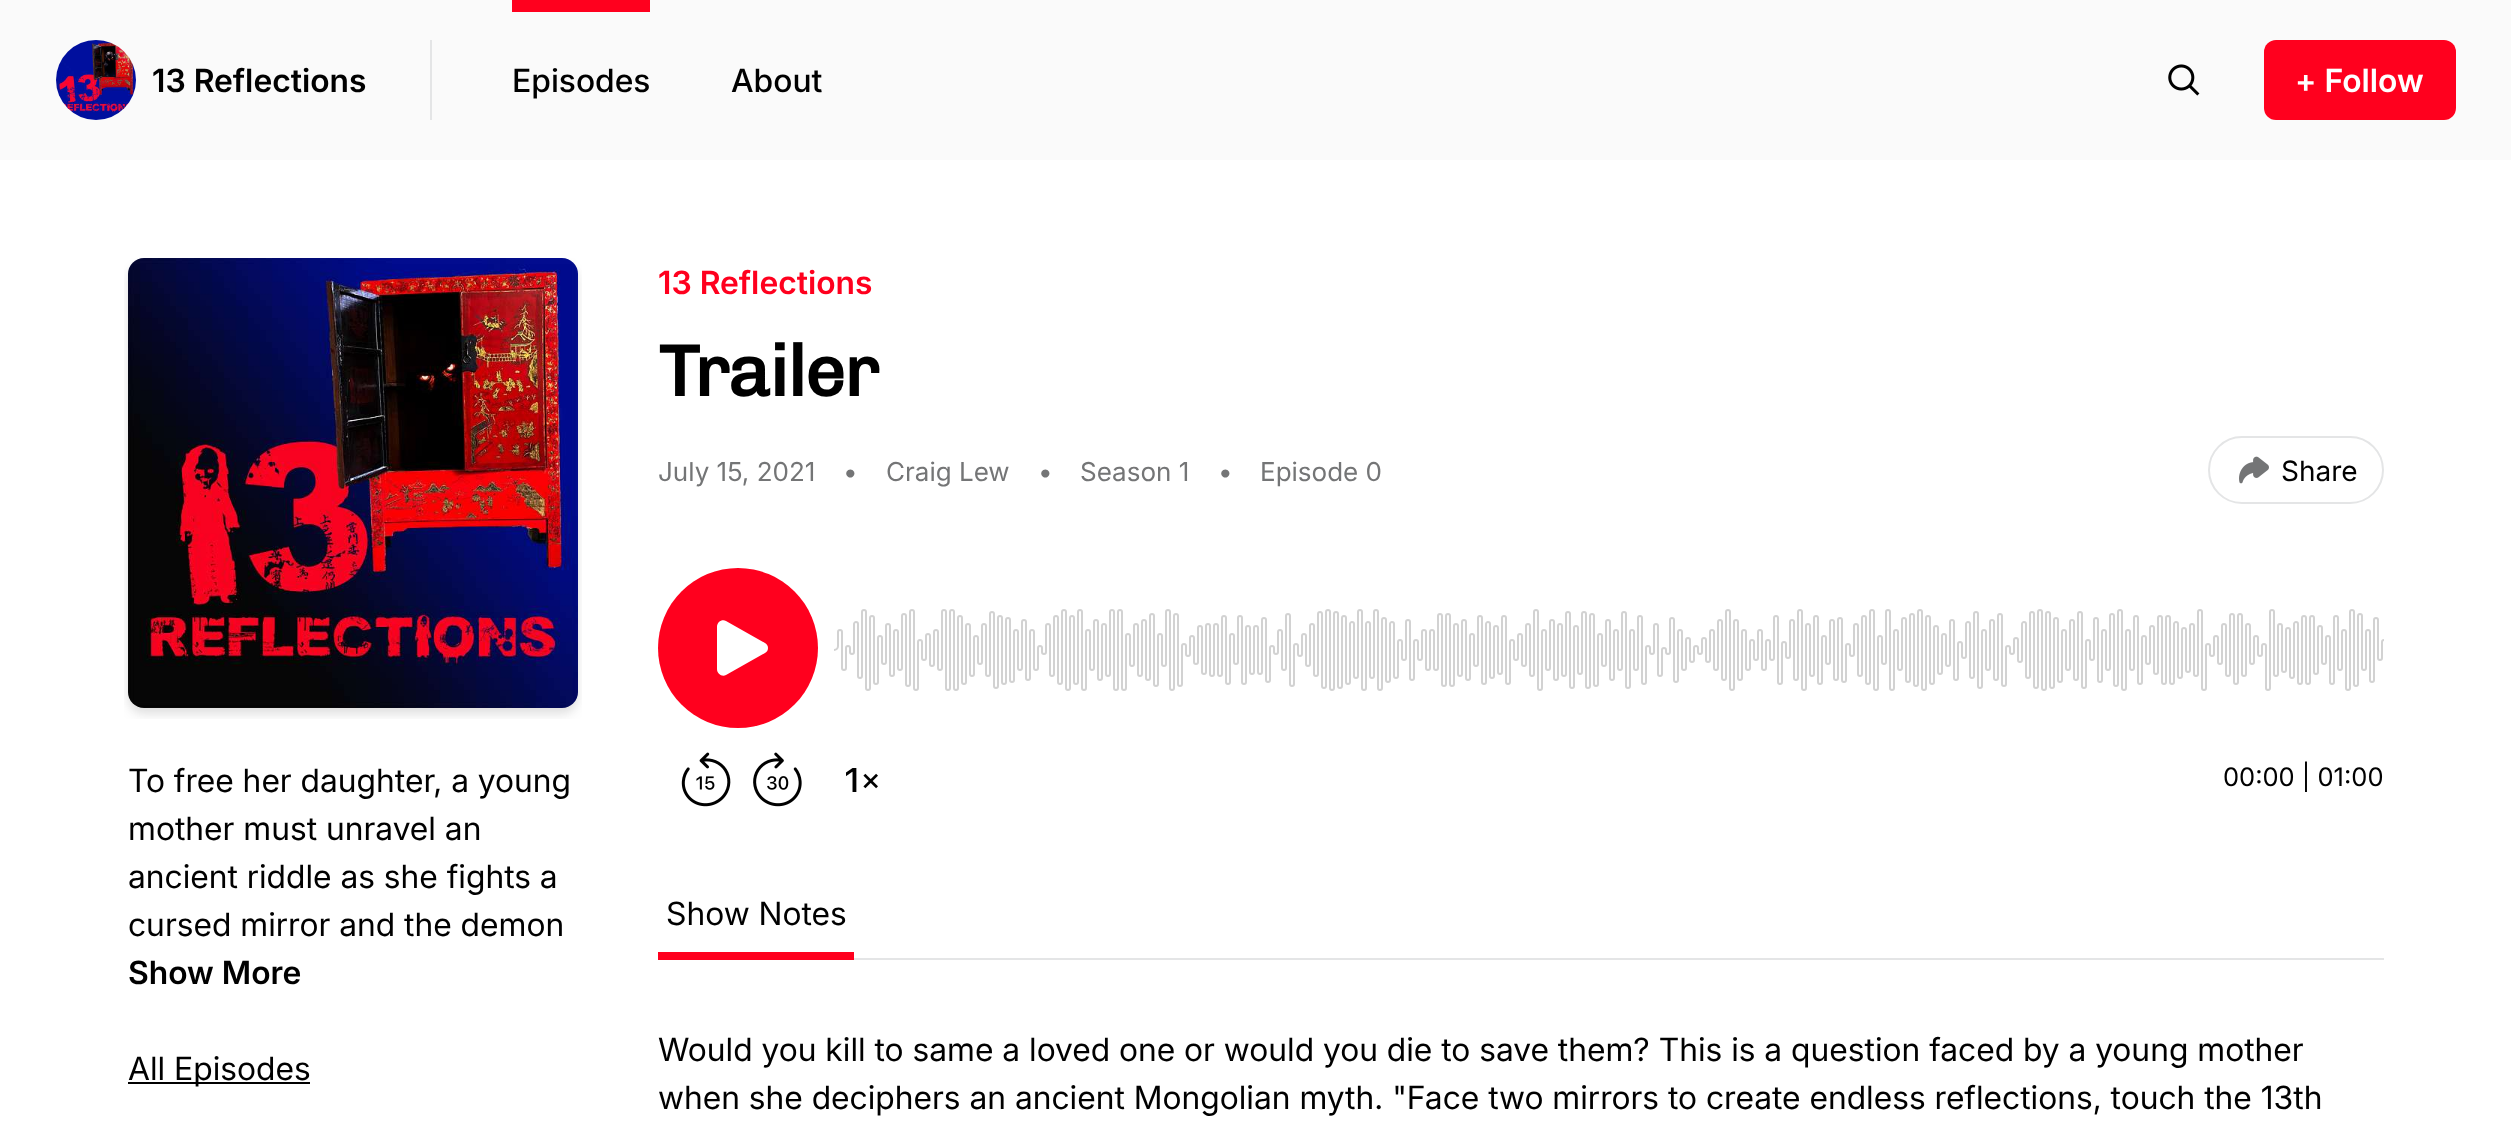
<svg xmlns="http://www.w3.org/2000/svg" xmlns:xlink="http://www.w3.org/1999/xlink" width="2511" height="1137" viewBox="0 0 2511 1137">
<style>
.cls-1{font:600 32px Inter;fill:#000000}
.cls-2{font:500 32px Inter;fill:#000000}
.cls-3{font:600 32px Inter;fill:#ffffff}
.cls-4{font:32px Inter;fill:#000000}
.cls-5{font:600 32px Inter;fill:#ff001e}
.cls-6{font:bold 72px Chivo;letter-spacing:-1.75px;fill:#000000}
.cls-7{font:26px 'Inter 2';fill:#747576}
.cls-8{font:28px 'Inter 2';fill:#000000}
.cls-9{font:25.5px 'Inter 2';fill:#000000}
</style>
<rect width="100%" height="100%" fill="#ffffff"/>
<rect fill="#fafafa" x="0" y="0" width="2511" height="160"/>
<rect fill="#e4e5e6" x="430" y="40" width="2" height="80"/>
<image xlink:href="image0.png" x="56" y="40" width="80" height="80"/>
<rect fill="#ff001e" x="512" y="0" width="138" height="12"/>
<image xlink:href="image1.png" x="2168" y="64" width="32" height="32"/>
<rect fill="#ff001e" x="2264" y="40" width="192" height="80" rx="12"/>
<image xlink:href="image2.png" x="124" y="258" width="458" height="461"/>
<rect fill="#000000" x="128" y="1082" width="182" height="2"/>
<rect fill="none" stroke="#e4e5e6" stroke-width="2" x="2209" y="437" width="174" height="66" rx="33"/>
<image xlink:href="image3.png" x="2239" y="456" width="30" height="28"/>
<image xlink:href="image4.png" x="681" y="752" width="50" height="55"/>
<image xlink:href="image5.png" x="753" y="752" width="49" height="55"/>
<image xlink:href="image6.png" x="846" y="768" width="32" height="24"/>
<circle fill="#ff001e" cx="738" cy="648" r="80"/>
<path fill="#ffffff" fill-rule="evenodd" d="M717 627C717 622 722 619 726 621L765 643C769 645 769 651 765 653L726 675C722 677 717 674 717 669Z"/>
<image xlink:href="image7.png" x="834" y="609" width="1550" height="82"/>
<rect fill="#e4e5e6" x="854" y="958" width="1530" height="2"/>
<rect fill="#ff001e" x="658" y="952" width="196" height="8"/>
<text class="cls-1" x="152" y="92">13 Reflections</text>
<text class="cls-2" x="512" y="92">Episodes</text>
<text class="cls-2" x="731" y="92">About</text>
<text class="cls-3" x="2295" y="92">+ Follow</text>
<text class="cls-4"><tspan x="128" y="792">To free her daughter, a young</tspan><tspan x="128" y="840">mother must unravel an</tspan><tspan x="128" y="888">ancient riddle as she fights a</tspan><tspan x="128" y="936">cursed mirror and the demon</tspan></text>
<text class="cls-1" x="128" y="984">Show More</text>
<text class="cls-4" x="128" y="1080">All Episodes</text>
<text class="cls-5" x="658" y="294">13 Reflections</text>
<text class="cls-6" x="658" y="396">Trailer</text>
<text class="cls-7" x="658" y="481">July 15, 2021</text>
<text class="cls-7" x="843" y="481">•</text>
<text class="cls-7" x="886" y="481">Craig Lew</text>
<text class="cls-7" x="1038" y="481">•</text>
<text class="cls-7" x="1080" y="481">Season 1</text>
<text class="cls-7" x="1218" y="481">•</text>
<text class="cls-7" x="1260" y="481">Episode 0</text>
<text class="cls-8" x="2281" y="481">Share</text>
<text class="cls-9" x="2223" y="786">00:00 | 01:00</text>
<text class="cls-4" x="666" y="925">Show Notes</text>
<text class="cls-4"><tspan x="658" y="1061">Would you kill to same a loved one or would you die to save them? This is a question faced by a young mother</tspan><tspan x="658" y="1109">when she deciphers an ancient Mongolian myth. "Face two mirrors to create endless reflections, touch the 13th</tspan></text>
</svg>
